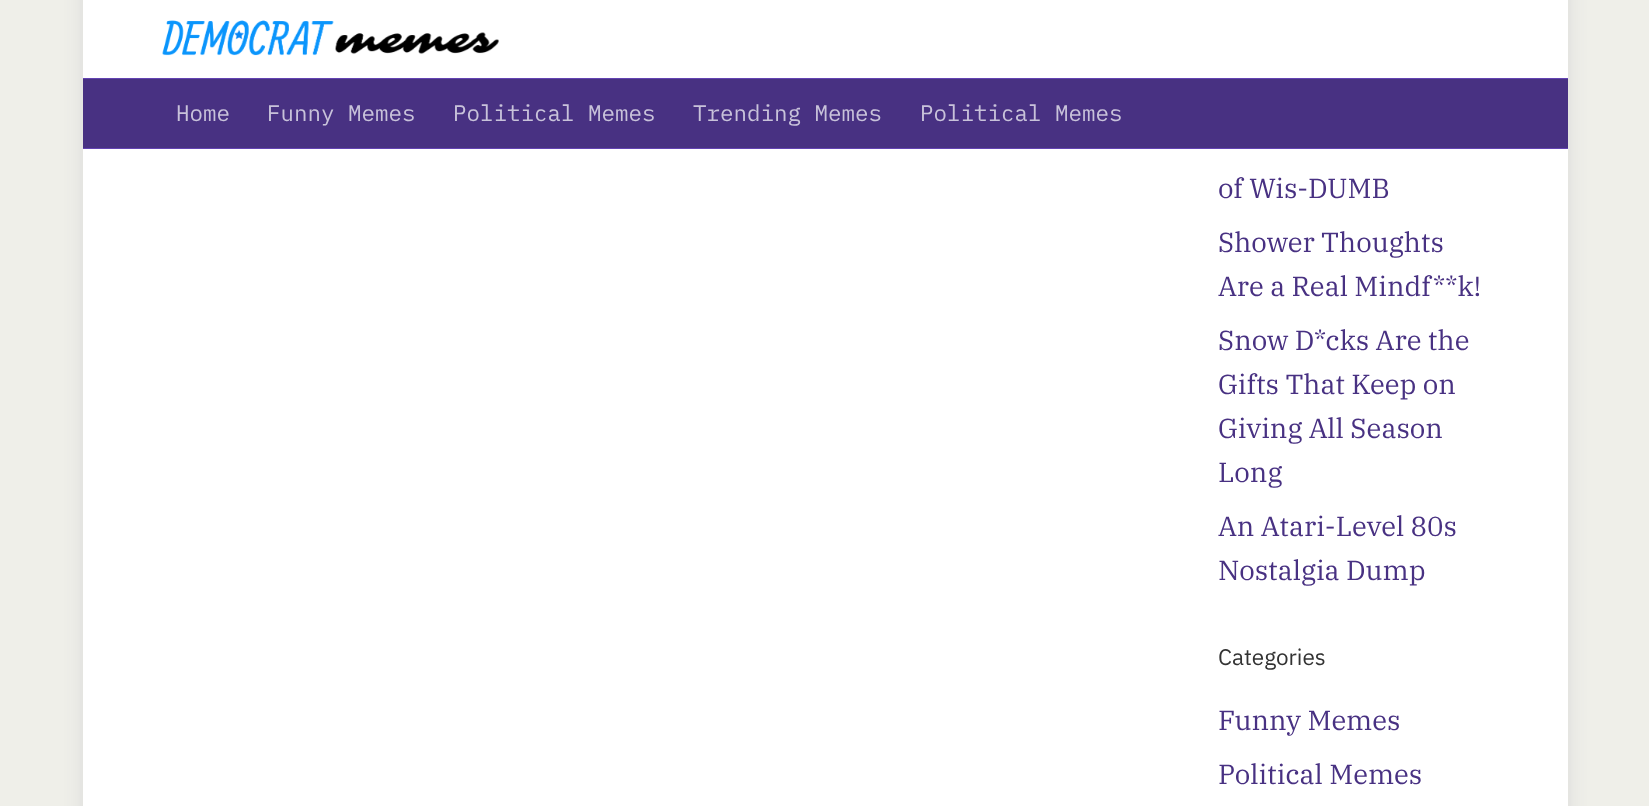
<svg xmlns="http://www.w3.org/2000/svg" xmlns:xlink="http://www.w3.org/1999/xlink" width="1649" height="806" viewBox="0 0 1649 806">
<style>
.cls-1{font:22.5px IBM Plex Mono;fill:#c8c2da}
.cls-2{font:27.5px IBM Plex Serif;fill:#483182}
.cls-3{font:22.5px IBM Plex Sans;fill:#333333}
</style>
<rect width="100%" height="100%" fill="#efefe9"/>
<rect fill="#d9d9d9" filter="blur(9.5px)" x="83" y="-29" width="1485" height="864"/>
<rect fill="#ffffff" x="83" y="0" width="1485" height="78"/>
<image xlink:href="image0.png" x="162" y="20" width="337" height="36"/>
<rect fill="#483182" x="83" y="79" width="1485" height="69"/>
<rect fill="#6343b2" x="83" y="78" width="1485" height="1"/>
<rect fill="#6343b2" x="83" y="148" width="1485" height="1"/>
<rect fill="#ffffff" x="83" y="149" width="1485" height="657"/>
<text class="cls-1" x="176" y="121">Home</text>
<text class="cls-1" x="267" y="121">Funny Memes</text>
<text class="cls-1" x="453" y="121">Political Memes</text>
<text class="cls-1" x="693" y="121">Trending Memes</text>
<text class="cls-1" x="920" y="121">Political Memes</text>
<text class="cls-2"><tspan x="1218" y="198">of Wis-DUMB</tspan><tspan x="1218" y="252">Shower Thoughts</tspan><tspan x="1218" y="296">Are a Real Mindf**k!</tspan><tspan x="1218" y="350">Snow D*cks Are the</tspan><tspan x="1218" y="394">Gifts That Keep on</tspan><tspan x="1218" y="438">Giving All Season</tspan><tspan x="1218" y="482">Long</tspan><tspan x="1218" y="536">An Atari-Level 80s</tspan><tspan x="1218" y="580">Nostalgia Dump</tspan></text>
<text class="cls-3" x="1218" y="665">Categories</text>
<text class="cls-2"><tspan x="1218" y="730">Funny Memes</tspan><tspan x="1218" y="784">Political Memes</tspan></text>
</svg>
